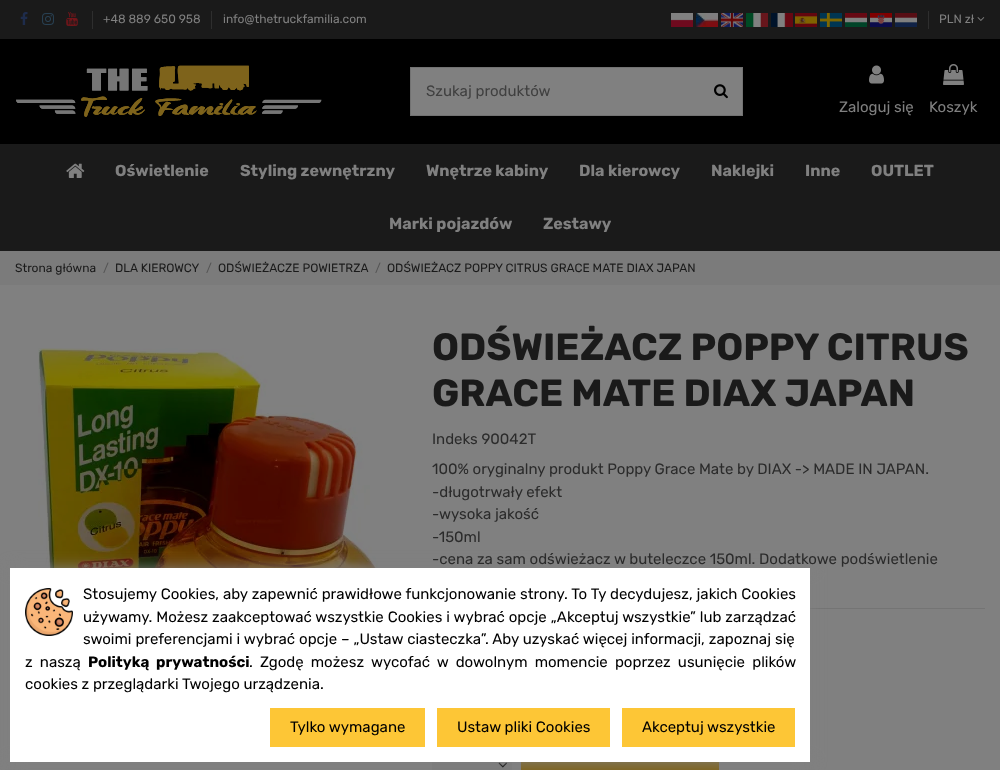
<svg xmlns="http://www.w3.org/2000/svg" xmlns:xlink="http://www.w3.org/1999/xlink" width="1000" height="770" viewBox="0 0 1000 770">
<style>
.cls-1{font:12px Rubik;fill:#808080}
.cls-2{font:15px Rubik;fill:#404040}
.cls-3{font:15px Rubik;fill:#808080}
.cls-4{font:bold 16px Rubik;fill:#808080}
.cls-5{font:12px Rubik;fill:#1a1a1a}
.cls-6{font:12px Rubik;fill:#545454}
.cls-7{font:bold 38px Rubik;fill:#1a1a1a}
.cls-8{font:15px Rubik;fill:#2b2b2b}
.cls-9{font:15px Rubik;fill:#000000}
.cls-10{font:bold 15px Rubik;fill:#000000}
</style>
<rect width="100%" height="100%" fill="#808080"/>
<rect fill="#1a1a1a" x="0" y="0" width="1000" height="39"/>
<image xlink:href="image0.png" x="20" y="12" width="8" height="13"/>
<image xlink:href="image1.png" x="42" y="13" width="12" height="12"/>
<image xlink:href="image2.png" x="66" y="12" width="12" height="14"/>
<rect fill="#2e2e2e" x="92" y="11" width="1" height="18"/>
<rect fill="#2e2e2e" x="211" y="11" width="1" height="18"/>
<image xlink:href="image3.png" x="671" y="13" width="22" height="14"/>
<image xlink:href="image4.png" x="696" y="13" width="22" height="14"/>
<image xlink:href="image5.png" x="721" y="13" width="22" height="14"/>
<image xlink:href="image6.png" x="746" y="13" width="22" height="14"/>
<image xlink:href="image7.png" x="771" y="13" width="22" height="14"/>
<image xlink:href="image8.png" x="795" y="13" width="22" height="14"/>
<image xlink:href="image9.png" x="820" y="13" width="22" height="14"/>
<image xlink:href="image10.png" x="845" y="13" width="22" height="14"/>
<image xlink:href="image11.png" x="870" y="13" width="22" height="14"/>
<image xlink:href="image12.png" x="895" y="13" width="22" height="14"/>
<rect fill="#2e2e2e" x="928" y="11" width="1" height="18"/>
<image xlink:href="image13.png" x="977" y="17" width="8" height="4"/>
<rect fill="#000000" x="0" y="39" width="1000" height="105"/>
<image xlink:href="image14.png" x="16" y="65" width="306" height="52"/>
<rect fill="#808080" stroke="#727272" x="410.5" y="67.5" width="332" height="48"/>
<image xlink:href="image15.png" x="714" y="84" width="14" height="15"/>
<image xlink:href="image16.png" x="869" y="65" width="15" height="19"/>
<image xlink:href="image17.png" x="943" y="64" width="21" height="21"/>
<rect fill="#1a1a1a" x="0" y="144" width="1000" height="107"/>
<image xlink:href="image18.png" x="66" y="163" width="19" height="15"/>
<rect fill="#7b7b7b" x="0" y="251" width="1000" height="34"/>
<image xlink:href="image19.png" x="38" y="348" width="349" height="220"/>
<rect fill="#747474" x="810" y="608" width="175" height="1"/>
<rect fill="#7c7c7c" x="432" y="762" width="80" height="8"/>
<image xlink:href="image20.png" x="498" y="762" width="9" height="6"/>
<rect fill="#7f631b" x="521" y="762" width="198" height="8"/>
<rect fill="#808080" filter="blur(7.5px)" x="10" y="568" width="800" height="194"/>
<rect fill="#ffffff" x="10" y="568" width="800" height="194"/>
<image xlink:href="image21.png" x="25" y="588" width="48" height="48"/>
<rect fill="#fdc636" x="270" y="708" width="155" height="39"/>
<rect fill="#fdc636" x="437" y="708" width="173" height="39"/>
<rect fill="#fdc636" x="622" y="708" width="173" height="39"/>
<text class="cls-1" x="103" y="23">+48 889 650 958</text>
<text class="cls-1" x="223" y="23">info@thetruckfamilia.com</text>
<text class="cls-1" x="939" y="23">PLN zł</text>
<text class="cls-2" x="426" y="96">Szukaj produktów</text>
<text class="cls-3" x="839" y="112">Zaloguj się</text>
<text class="cls-3" x="929" y="112">Koszyk</text>
<text class="cls-4" x="115" y="176">Oświetlenie</text>
<text class="cls-4" x="240" y="176">Styling zewnętrzny</text>
<text class="cls-4" x="426" y="176">Wnętrze kabiny</text>
<text class="cls-4" x="579" y="176">Dla kierowcy</text>
<text class="cls-4" x="711" y="176">Naklejki</text>
<text class="cls-4" x="805" y="176">Inne</text>
<text class="cls-4" x="871" y="176">OUTLET</text>
<text class="cls-4" x="389" y="229">Marki pojazdów</text>
<text class="cls-4" x="543" y="229">Zestawy</text>
<text class="cls-5" x="15" y="272">Strona główna</text>
<text class="cls-6" x="103" y="272">/</text>
<text class="cls-5" x="115" y="272">DLA KIEROWCY</text>
<text class="cls-6" x="206" y="272">/</text>
<text class="cls-5" x="218" y="272">ODŚWIEŻACZE POWIETRZA</text>
<text class="cls-6" x="375" y="272">/</text>
<text class="cls-5" x="387" y="272">ODŚWIEŻACZ POPPY CITRUS GRACE MATE DIAX JAPAN</text>
<text class="cls-7"><tspan x="432" y="360">ODŚWIEŻACZ POPPY CITRUS</tspan><tspan x="432" y="406">GRACE MATE DIAX JAPAN</tspan></text>
<text class="cls-8" x="432" y="444">Indeks 90042T</text>
<text class="cls-8"><tspan x="432" y="474">100% oryginalny produkt Poppy Grace Mate by DIAX -&gt; MADE IN JAPAN.</tspan><tspan x="432" y="497">-długotrwały efekt</tspan><tspan x="432" y="519">-wysoka jakość</tspan><tspan x="432" y="542">-150ml</tspan><tspan x="432" y="564">-cena za sam odświeżacz w buteleczce 150ml. Dodatkowe podświetlenie</tspan></text>
<text class="cls-9"><tspan x="83" y="599" word-spacing="0.25">Stosujemy Cookies, aby zapewnić prawidłowe funkcjonowanie strony. To Ty decydujesz, jakich Cookies</tspan><tspan x="83" y="622" word-spacing="0.25">używamy. Możesz zaakceptować wszystkie Cookies i wybrać opcje „Akceptuj wszystkie” lub zarządzać</tspan><tspan x="83" y="644" word-spacing="0.25">swoimi preferencjami i wybrać opcje – „Ustaw ciasteczka”. Aby uzyskać więcej informacji, zapoznaj się</tspan></text>
<text class="cls-9" x="25" y="667" word-spacing="3.5">z naszą</text>
<text class="cls-10" x="88" y="667" word-spacing="3.5">Polityką prywatności</text>
<text class="cls-9" x="249" y="667" word-spacing="3.5">. Zgodę możesz wycofać w dowolnym momencie poprzez usunięcie plików</text>
<text class="cls-9" x="25" y="689">cookies z przeglądarki Twojego urządzenia.</text>
<text class="cls-9" x="290" y="732">Tylko wymagane</text>
<text class="cls-9" x="457" y="732">Ustaw pliki Cookies</text>
<text class="cls-9" x="642" y="732">Akceptuj wszystkie</text>
</svg>
